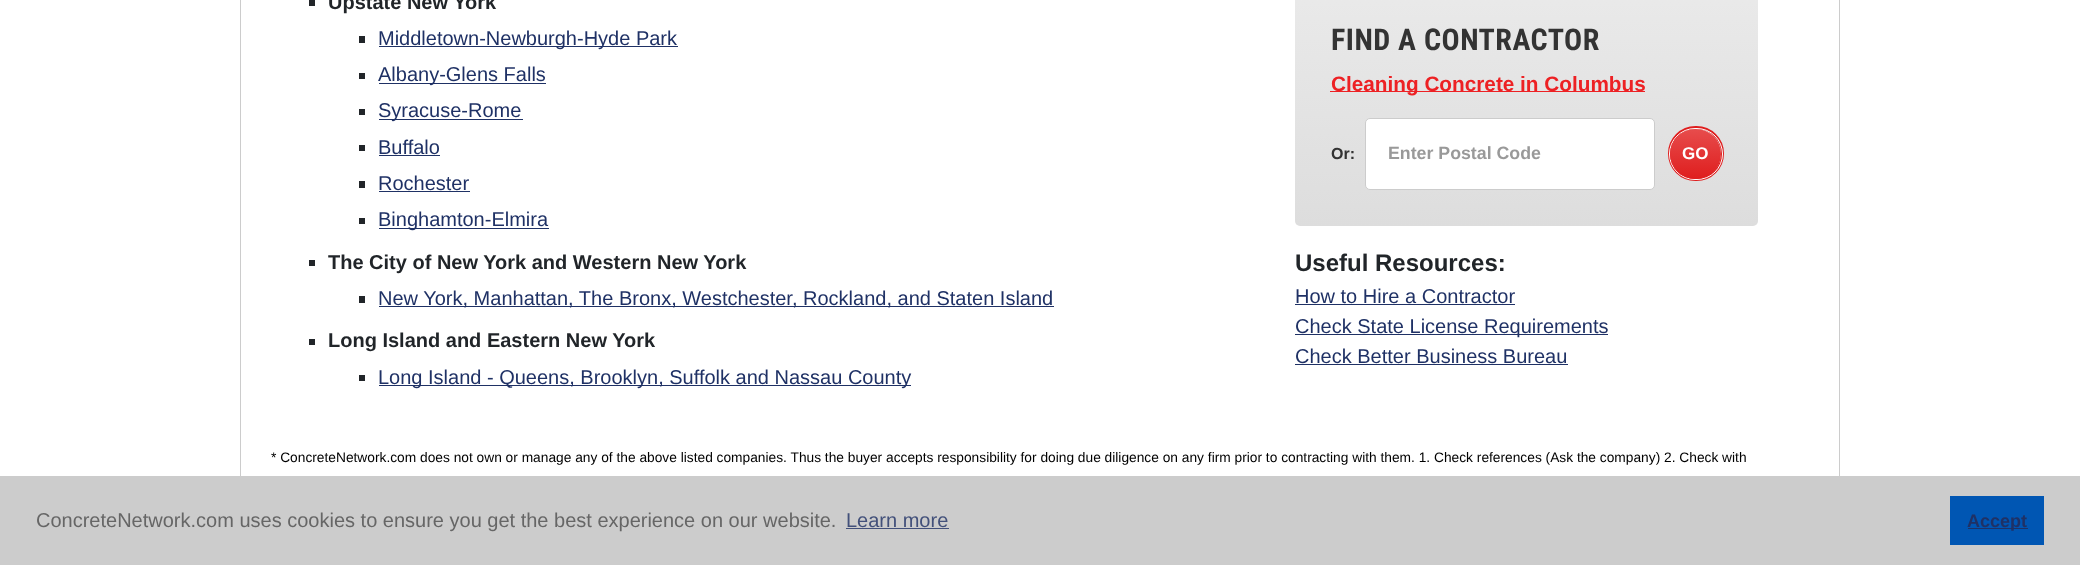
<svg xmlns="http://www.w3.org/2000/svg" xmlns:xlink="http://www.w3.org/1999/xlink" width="2080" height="565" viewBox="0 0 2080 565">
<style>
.cls-1{font:bold 20px Liberation Sans;fill:#212529}
.cls-2{font:20px Liberation Sans;fill:#1f3165}
.cls-3{font:bold 30px Roboto Condensed;letter-spacing:0.5px;fill:#333333}
.cls-4{font:bold 20.75px Liberation Sans;fill:#ed2124}
.cls-5{font:bold 16px Liberation Sans;fill:#333333}
.cls-6{font:bold 17.75px Liberation Sans;fill:#999999}
.cls-7{font:bold 17px Liberation Sans;fill:#ffffff}
.cls-8{font:bold 24px Liberation Sans;fill:#212529}
.cls-9{font:13.75px Liberation Sans;fill:#000000}
.cls-10{font:20px Liberation Sans;fill:#666666}
.cls-11{font:20px Liberation Sans;fill:#42507a}
.cls-12{font:bold 18px Liberation Sans;fill:#1f3165}
</style>
<defs>
<linearGradient id="g1" gradientUnits="userSpaceOnUse" x1="1526" y1="-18" x2="1526" y2="226"><stop offset="0" stop-color="#eaeaea"/><stop offset="1" stop-color="#dddddd"/></linearGradient>
<linearGradient id="g2" gradientUnits="userSpaceOnUse" x1="1696" y1="129" x2="1696" y2="179"><stop offset="0" stop-color="#e74c4c"/><stop offset="1" stop-color="#df1e1e"/></linearGradient>
</defs>
<rect width="100%" height="100%" fill="#ffffff"/>
<rect fill="#cccccc" x="1839" y="0" width="1" height="476"/>
<rect fill="#cccccc" x="240" y="0" width="1" height="476"/>
<rect fill="#212529" x="309" y="0" width="6" height="6"/>
<rect fill="#212529" x="359" y="36" width="6" height="7"/>
<rect fill="#1f3165" x="379" y="46" width="299" height="1"/>
<rect fill="#212529" x="359" y="73" width="6" height="6"/>
<rect fill="#1f3165" x="379" y="83" width="167" height="1"/>
<rect fill="#212529" x="359" y="109" width="6" height="6"/>
<rect fill="#1f3165" x="379" y="119" width="144" height="1"/>
<rect fill="#212529" x="359" y="145" width="6" height="6"/>
<rect fill="#1f3165" x="379" y="155" width="61" height="1"/>
<rect fill="#212529" x="359" y="181" width="6" height="7"/>
<rect fill="#1f3165" x="379" y="191" width="91" height="1"/>
<rect fill="#212529" x="359" y="218" width="6" height="6"/>
<rect fill="#1f3165" x="379" y="228" width="170" height="1"/>
<rect fill="#212529" x="309" y="260" width="6" height="6"/>
<rect fill="#212529" x="359" y="296" width="6" height="7"/>
<rect fill="#1f3165" x="379" y="306" width="675" height="1"/>
<rect fill="#212529" x="309" y="339" width="6" height="6"/>
<rect fill="#212529" x="359" y="375" width="6" height="6"/>
<rect fill="#1f3165" x="379" y="385" width="532" height="1"/>
<rect fill="url(#g1)" x="1295" y="-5" width="463" height="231" rx="5"/>
<rect fill="#ed2124" x="1330" y="91" width="315" height="1"/>
<rect fill="#ffffff" stroke="#cccccc" x="1365.5" y="118.5" width="289" height="71" rx="4.5"/>
<rect fill="none" stroke="#df1e1e" stroke-width="3" x="1669.5" y="127.5" width="53" height="52" rx="26"/>
<rect fill="none" stroke="#ffffff" x="1669.5" y="128.5" width="53" height="51" rx="25.5"/>
<rect fill="url(#g2)" x="1670" y="129" width="51" height="50" rx="25"/>
<rect fill="#1f3165" x="1295" y="304" width="220" height="1"/>
<rect fill="#1f3165" x="1295" y="334" width="313" height="1"/>
<rect fill="#1f3165" x="1295" y="364" width="273" height="1"/>
<rect fill="#cccccc" x="0" y="476" width="2080" height="89"/>
<rect fill="#42507a" x="846" y="528" width="103" height="1"/>
<rect fill="#0056b3" x="1950" y="496" width="94" height="49"/>
<rect fill="#1f3165" x="1968" y="528" width="60" height="1"/>
<text class="cls-1" x="328" y="9">Upstate New York</text>
<text class="cls-2"><tspan x="378" y="45">Middletown-Newburgh-Hyde Park</tspan><tspan x="378" y="81">Albany-Glens Falls</tspan><tspan x="378" y="117">Syracuse-Rome</tspan><tspan x="378" y="154">Buffalo</tspan><tspan x="378" y="190">Rochester</tspan><tspan x="378" y="226">Binghamton-Elmira</tspan></text>
<text class="cls-1" x="328" y="269">The City of New York and Western New York</text>
<text class="cls-2" x="378" y="305">New York, Manhattan, The Bronx, Westchester, Rockland, and Staten Island</text>
<text class="cls-1" x="328" y="347">Long Island and Eastern New York</text>
<text class="cls-2" x="378" y="384">Long Island - Queens, Brooklyn, Suffolk and Nassau County</text>
<text class="cls-3" x="1331" y="50">FIND A CONTRACTOR</text>
<text class="cls-4" x="1331" y="91">Cleaning Concrete in Columbus</text>
<text class="cls-5" x="1331" y="159">Or:</text>
<text class="cls-6" x="1388" y="159">Enter Postal Code</text>
<text class="cls-7" x="1682" y="159">GO</text>
<text class="cls-8" x="1295" y="271">Useful Resources:</text>
<text class="cls-2"><tspan x="1295" y="303">How to Hire a Contractor</tspan><tspan x="1295" y="333">Check State License Requirements</tspan><tspan x="1295" y="363">Check Better Business Bureau</tspan></text>
<text class="cls-9" x="271" y="462">* ConcreteNetwork.com does not own or manage any of the above listed companies. Thus the buyer accepts responsibility for doing due diligence on any firm prior to contracting with them. 1. Check references (Ask the company) 2. Check with</text>
<text class="cls-10" x="36" y="527">ConcreteNetwork.com uses cookies to ensure you get the best experience on our website.</text>
<text class="cls-11" x="846" y="527">Learn more</text>
<text class="cls-12" x="1967" y="527">Accept</text>
</svg>
